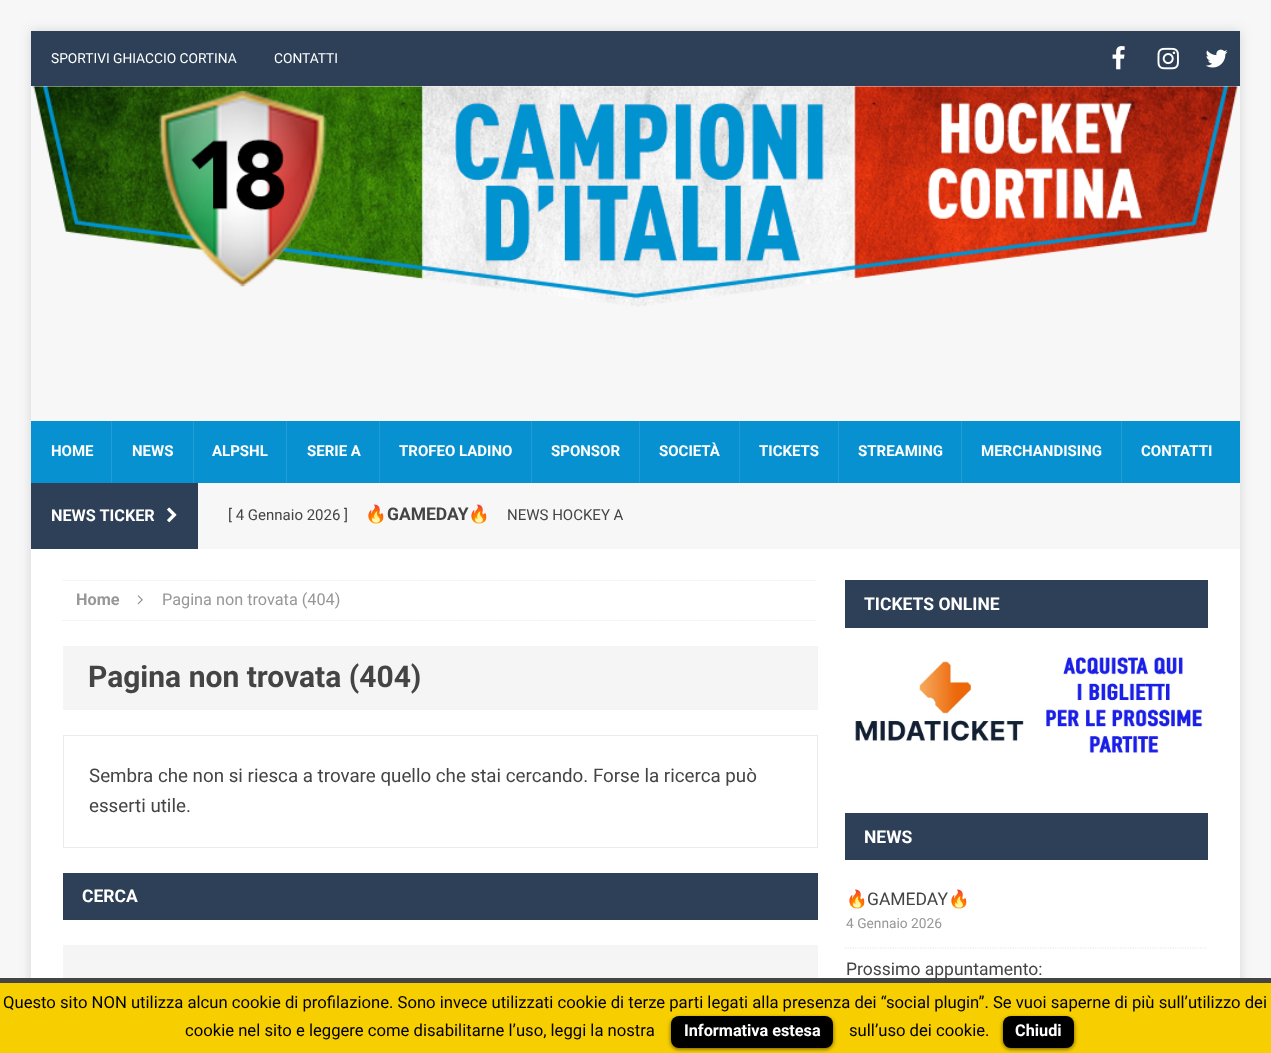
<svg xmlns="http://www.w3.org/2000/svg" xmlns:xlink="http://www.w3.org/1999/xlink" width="1271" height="1053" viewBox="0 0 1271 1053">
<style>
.cls-1{font:13.75px Roboto;fill:#ffffff}
.cls-2{font:bold 15px Roboto;fill:#ffffff}
.cls-3{font:bold 16.25px Roboto;fill:#ffffff}
.cls-4{font:15px Roboto;fill:#444444}
.cls-5{font:bold 17.5px Noto Color Emoji;fill:#444444}
.cls-6{font:bold 17.5px Roboto;fill:#444444}
.cls-7{font:bold 16.25px Roboto;fill:#979797}
.cls-8{font:16.25px Roboto;fill:#979797}
.cls-9{font:bold 30px Roboto;fill:#444444}
.cls-10{font:18.75px Roboto;fill:#444444}
.cls-11{font:bold 17.5px Roboto;fill:#ffffff}
.cls-12{font:17.5px Noto Color Emoji;fill:#444444}
.cls-13{font:17.5px Roboto;fill:#444444}
.cls-14{font:13.75px Roboto;fill:#979797}
.cls-15{font:16.67px Roboto;fill:#000000}
</style>
<defs>
<clipPath id="clip1"><path d="M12 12H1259V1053H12ZM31 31H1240V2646H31Z" clip-rule="evenodd"/></clipPath>
<clipPath id="clip2"><rect x="63" y="580" width="755" height="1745"/></clipPath>
</defs>
<rect width="100%" height="100%" fill="#f7f7f7"/>
<g clip-path="url(#clip1)">
<rect fill="#323232" fill-opacity="0.17" filter="blur(6px)" x="31" y="31" width="1209" height="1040"/>
</g>
<rect fill="#2e4057" x="31" y="31" width="1209" height="55"/>
<image xlink:href="image0.png" x="1112" y="46" width="13" height="24"/>
<image xlink:href="image1.png" x="1157" y="47" width="22" height="23"/>
<image xlink:href="image2.png" x="1205" y="49" width="23" height="19"/>
<image xlink:href="image3.png" x="32" y="86" width="1206" height="221"/>
<rect fill="#0791d1" x="31" y="421" width="1209" height="62"/>
<rect fill="#209cd6" x="111" y="421" width="1" height="62"/>
<rect fill="#209cd6" x="193" y="421" width="1" height="62"/>
<rect fill="#209cd6" x="286" y="421" width="1" height="62"/>
<rect fill="#209cd6" x="379" y="421" width="1" height="62"/>
<rect fill="#209cd6" x="531" y="421" width="1" height="62"/>
<rect fill="#209cd6" x="639" y="421" width="1" height="62"/>
<rect fill="#209cd6" x="739" y="421" width="1" height="62"/>
<rect fill="#209cd6" x="838" y="421" width="1" height="62"/>
<rect fill="#209cd6" x="961" y="421" width="1" height="62"/>
<rect fill="#209cd6" x="1121" y="421" width="1" height="62"/>
<rect fill="#2e4057" x="31" y="483" width="167" height="66"/>
<image xlink:href="image4.png" x="167" y="507" width="10" height="16"/>
<rect fill="#ffffff" x="31" y="549" width="1209" height="429"/>
<g clip-path="url(#clip2)">
<path fill="none" stroke="#ebebeb" stroke-width="1.2" stroke-dasharray="1.25 1.25" d="M62.5 580.5H817.5"/>
</g>
<path fill="none" stroke="#ebebeb" stroke-width="1.2" stroke-dasharray="1.25 1.25" d="M62.5 620.5H817.5"/>
<image xlink:href="image5.png" x="137" y="595" width="6" height="10"/>
<rect fill="#f5f5f5" x="63" y="646" width="755" height="64"/>
<rect fill="none" stroke="#ebebeb" x="63.5" y="735.5" width="754" height="112"/>
<rect fill="#2e4057" x="63" y="873" width="755" height="47"/>
<rect fill="#f5f5f5" x="63" y="945" width="755" height="33"/>
<rect fill="#2e4057" x="845" y="580" width="363" height="48"/>
<image xlink:href="image6.png" x="855" y="657" width="349" height="98"/>
<rect fill="#2e4057" x="845" y="813" width="363" height="47"/>
<path fill="none" stroke="#e5e5e5" stroke-width="1.2" stroke-dasharray="1.25 1.25" d="M845 948H1207.5"/>
<rect fill="#f7cf00" x="0" y="983" width="1271" height="70"/>
<rect fill="#444444" x="0" y="978" width="1271" height="5"/>
<rect fill="#000000" fill-opacity="0.6" filter="blur(2px)" x="671" y="1018" width="162" height="31" rx="8"/>
<rect fill="#000000" x="671" y="1016" width="162" height="32" rx="8"/>
<rect fill="#000000" fill-opacity="0.6" filter="blur(2px)" x="1003" y="1018" width="71" height="31" rx="8"/>
<rect fill="#000000" x="1003" y="1016" width="71" height="32" rx="8"/>
<rect fill="#000000" fill-opacity="0.25" x="1006" y="1046" width="1" height="1"/>
<text class="cls-1" x="51" y="63">SPORTIVI GHIACCIO CORTINA</text>
<text class="cls-1" x="274" y="63">CONTATTI</text>
<text class="cls-2" x="51" y="456">HOME</text>
<text class="cls-2" x="132" y="456">NEWS</text>
<text class="cls-2" x="212" y="456">ALPSHL</text>
<text class="cls-2" x="307" y="456">SERIE A</text>
<text class="cls-2" x="399" y="456">TROFEO LADINO</text>
<text class="cls-2" x="551" y="456">SPONSOR</text>
<text class="cls-2" x="659" y="456">SOCIETÀ</text>
<text class="cls-2" x="759" y="456">TICKETS</text>
<text class="cls-2" x="858" y="456">STREAMING</text>
<text class="cls-2" x="981" y="456">MERCHANDISING</text>
<text class="cls-2" x="1141" y="456">CONTATTI</text>
<text class="cls-3" x="51" y="521">NEWS TICKER</text>
<text class="cls-4" x="228" y="520">[ 4 Gennaio 2026 ]</text>
<text class="cls-5" x="365" y="520">🔥</text>
<text class="cls-6" x="387" y="520">GAMEDAY</text>
<text class="cls-5" x="468" y="520">🔥</text>
<text class="cls-4" x="507" y="520">NEWS HOCKEY A</text>
<text class="cls-7" x="76" y="605">Home</text>
<text class="cls-8" x="162" y="605">Pagina non trovata (404)</text>
<text class="cls-9" x="88" y="687">Pagina non trovata (404)</text>
<text class="cls-10"><tspan x="89" y="782">Sembra che non si riesca a trovare quello che stai cercando. Forse la ricerca può</tspan><tspan x="89" y="812">esserti utile.</tspan></text>
<text class="cls-11" x="82" y="902">CERCA</text>
<text class="cls-11" x="864" y="610">TICKETS ONLINE</text>
<text class="cls-11" x="864" y="843">NEWS</text>
<text class="cls-12" x="846" y="905">🔥</text>
<text class="cls-13" x="867" y="905">GAMEDAY</text>
<text class="cls-12" x="948" y="905">🔥</text>
<text class="cls-14" x="846" y="928">4 Gennaio 2026</text>
<text class="cls-13" x="846" y="975">Prossimo appuntamento:</text>
<text class="cls-15" x="3" y="1008">Questo sito NON utilizza alcun cookie di profilazione. Sono invece utilizzati cookie di terze parti legati alla presenza dei “social plugin”. Se vuoi saperne di più sull’utilizzo dei</text>
<text class="cls-15" x="185" y="1036">cookie nel sito e leggere come disabilitarne l’uso, leggi la nostra</text>
<text class="cls-3" x="684" y="1036">Informativa estesa</text>
<text class="cls-15" x="849" y="1036">sull’uso dei cookie.</text>
<text class="cls-3" x="1015" y="1036">Chiudi</text>
</svg>
